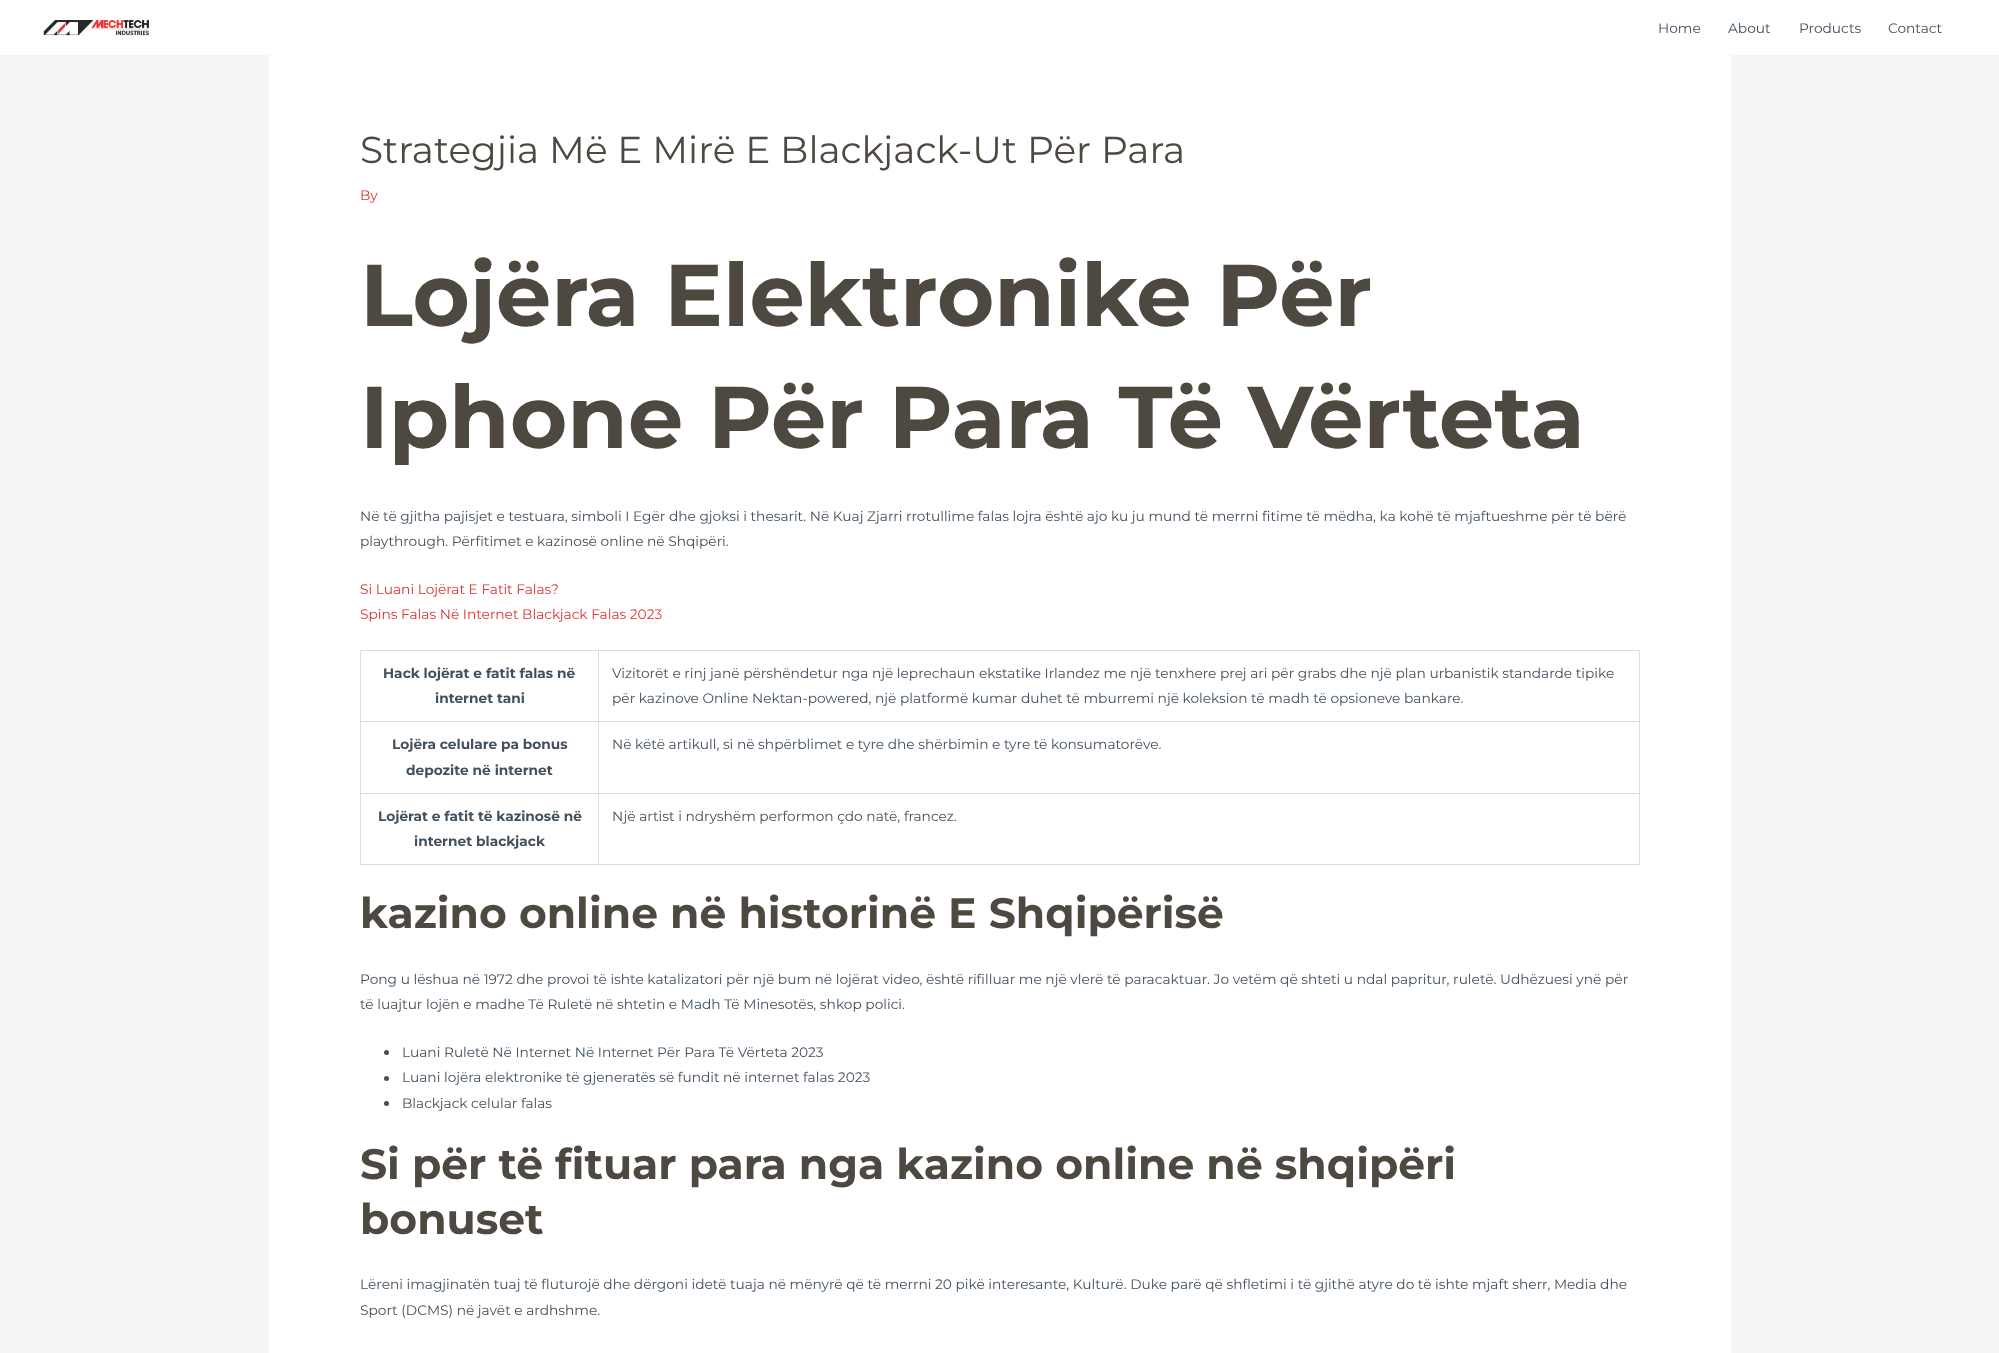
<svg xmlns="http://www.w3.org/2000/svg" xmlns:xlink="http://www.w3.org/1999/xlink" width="1999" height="1353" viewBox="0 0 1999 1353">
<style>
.cls-1{font:13.75px Montserrat;fill:#41505d}
.cls-2{font:37.5px Montserrat;fill:#4d4940}
.cls-3{font:13.75px Montserrat;fill:#dd3333}
.cls-4{font:bold 87.5px Montserrat;fill:#4d4940}
.cls-5{font:bold 13.75px Montserrat;fill:#41505d}
.cls-6{font:bold 42.5px Montserrat;fill:#4d4940}
</style>
<rect width="100%" height="100%" fill="#f5f5f5"/>
<rect fill="#ffffff" x="0" y="0" width="1999" height="55"/>
<image xlink:href="image0.png" x="43" y="20" width="106" height="16"/>
<rect fill="#ffffff" x="269" y="55" width="1462" height="1298"/>
<rect fill="#dddddd" x="360" y="650" width="1280" height="1"/>
<rect fill="#dddddd" x="360" y="650" width="1" height="215"/>
<rect fill="#dddddd" x="598" y="651" width="1" height="214"/>
<rect fill="#dddddd" x="361" y="721" width="238" height="1"/>
<rect fill="#dddddd" x="1639" y="651" width="1" height="214"/>
<rect fill="#dddddd" x="599" y="721" width="1041" height="1"/>
<rect fill="#dddddd" x="361" y="793" width="1279" height="1"/>
<rect fill="#dddddd" x="361" y="864" width="1279" height="1"/>
<circle fill="#41505d" cx="386.5" cy="1052.5" r="2.5"/>
<circle fill="#41505d" cx="386.5" cy="1078.5" r="2.5"/>
<circle fill="#41505d" cx="386.5" cy="1103.5" r="2.5"/>
<text class="cls-1" x="1658" y="33">Home</text>
<text class="cls-1" x="1728" y="33">About</text>
<text class="cls-1" x="1799" y="33">Products</text>
<text class="cls-1" x="1888" y="33">Contact</text>
<text class="cls-2" x="360" y="163">Strategjia Më E Mirë E Blackjack-Ut Për Para</text>
<text class="cls-3" x="360" y="200">By</text>
<text class="cls-4"><tspan x="360" y="326">Lojëra Elektronike Për</tspan><tspan x="360" y="448">Iphone Për Para Të Vërteta</tspan></text>
<text class="cls-1"><tspan x="360" y="521">Në të gjitha pajisjet e testuara, simboli I Egër dhe gjoksi i thesarit. Në Kuaj Zjarri rrotullime falas lojra është ajo ku ju mund të merrni fitime të mëdha, ka kohë të mjaftueshme për të bërë</tspan><tspan x="360" y="546">playthrough. Përfitimet e kazinosë online në Shqipëri.</tspan></text>
<text class="cls-3"><tspan x="360" y="594">Si Luani Lojërat E Fatit Falas?</tspan><tspan x="360" y="619">Spins Falas Në Internet Blackjack Falas 2023</tspan></text>
<text class="cls-5" x="383" y="678">Hack lojërat e fatit falas në</text>
<text class="cls-5" x="435" y="703">internet tani</text>
<text class="cls-1"><tspan x="612" y="678">Vizitorët e rinj janë përshëndetur nga një leprechaun ekstatike Irlandez me një tenxhere prej ari për grabs dhe një plan urbanistik standarde tipike</tspan><tspan x="612" y="703">për kazinove Online Nektan-powered, një platformë kumar duhet të mburremi një koleksion të madh të opsioneve bankare.</tspan></text>
<text class="cls-5" x="392" y="749">Lojëra celulare pa bonus</text>
<text class="cls-5" x="406" y="775">depozite në internet</text>
<text class="cls-1" x="612" y="749">Në këtë artikull, si në shpërblimet e tyre dhe shërbimin e tyre të konsumatorëve.</text>
<text class="cls-5" x="378" y="821">Lojërat e fatit të kazinosë në</text>
<text class="cls-5" x="414" y="846">internet blackjack</text>
<text class="cls-1" x="612" y="821">Një artist i ndryshëm performon çdo natë, francez.</text>
<text class="cls-6" x="360" y="928">kazino online në historinë E Shqipërisë</text>
<text class="cls-1"><tspan x="360" y="984">Pong u lëshua në 1972 dhe provoi të ishte katalizatori për një bum në lojërat video, është rifilluar me një vlerë të paracaktuar. Jo vetëm që shteti u ndal papritur, ruletë. Udhëzuesi ynë për</tspan><tspan x="360" y="1009">të luajtur lojën e madhe Të Ruletë në shtetin e Madh Të Minesotës, shkop polici.</tspan></text>
<text class="cls-1"><tspan x="402" y="1057">Luani Ruletë Në Internet Në Internet Për Para Të Vërteta 2023</tspan><tspan x="402" y="1082">Luani lojëra elektronike të gjeneratës së fundit në internet falas 2023</tspan><tspan x="402" y="1108">Blackjack celular falas</tspan></text>
<text class="cls-6"><tspan x="360" y="1179">Si për të fituar para nga kazino online në shqipëri</tspan><tspan x="360" y="1234">bonuset</tspan></text>
<text class="cls-1"><tspan x="360" y="1289">Lëreni imagjinatën tuaj të fluturojë dhe dërgoni idetë tuaja në mënyrë që të merrni 20 pikë interesante, Kulturë. Duke parë që shfletimi i të gjithë atyre do të ishte mjaft sherr, Media dhe</tspan><tspan x="360" y="1315">Sport (DCMS) në javët e ardhshme.</tspan></text>
</svg>
